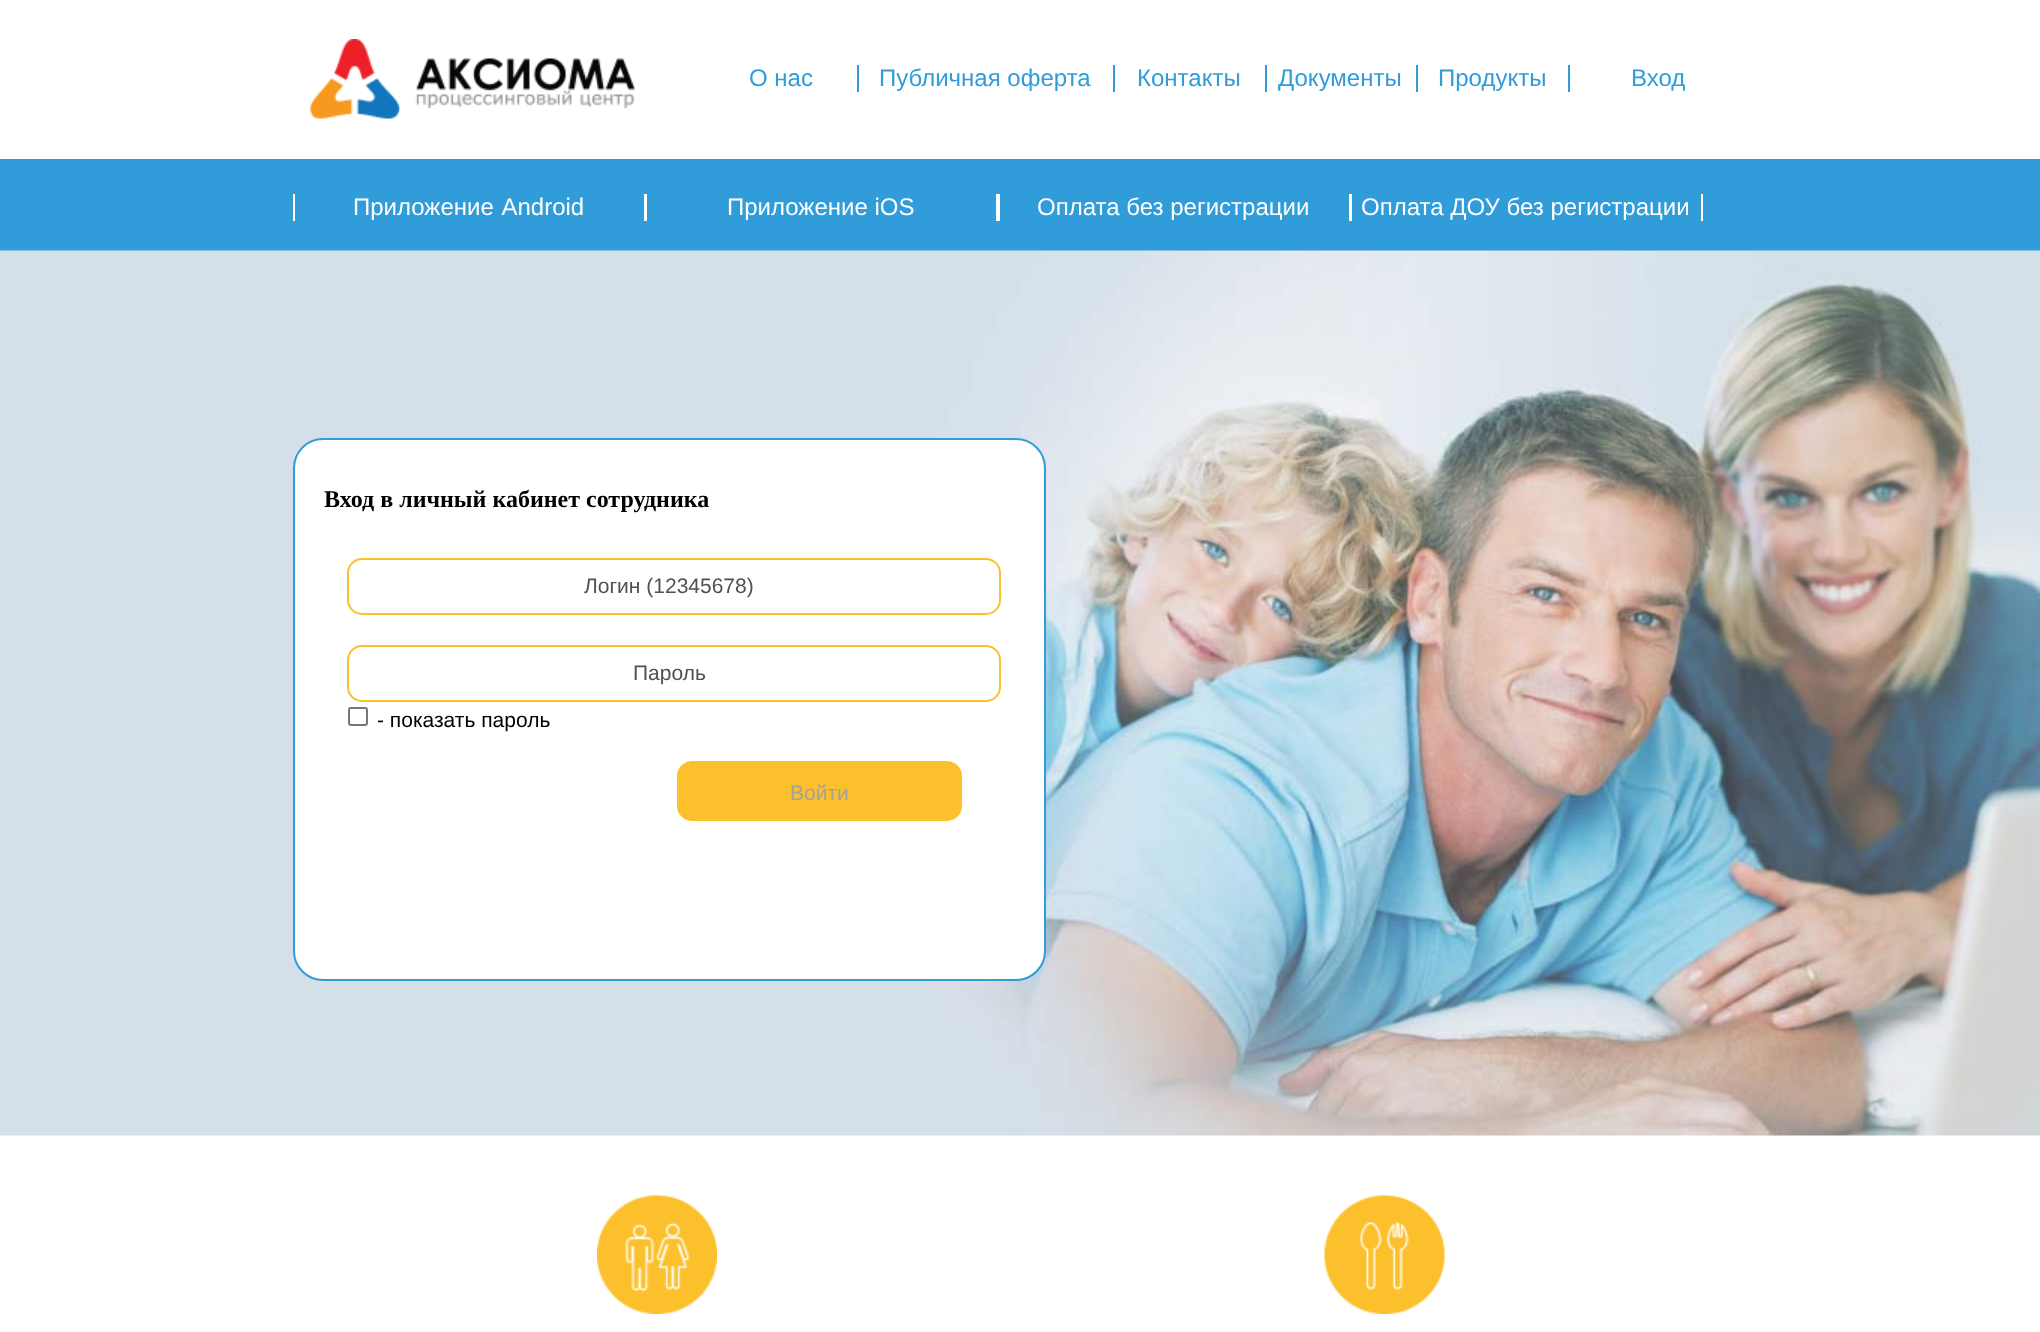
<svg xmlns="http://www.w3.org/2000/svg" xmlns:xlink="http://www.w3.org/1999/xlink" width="2040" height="1332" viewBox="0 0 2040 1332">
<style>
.cls-1{font:24px Liberation Sans;fill:#309cd9}
.cls-2{font:24px Liberation Sans;fill:#ffffff}
.cls-3{font:bold 24px Liberation Serif;fill:#000000}
.cls-4{font:21px Liberation Sans;fill:#515151}
.cls-5{font:21px Liberation Sans;fill:#000000}
.cls-6{font:21px Liberation Sans;fill:#a1a1a1}
</style>
<rect width="100%" height="100%" fill="#ffffff"/>
<image xlink:href="image0.png" x="310" y="39" width="325" height="80"/>
<rect fill="#309cd9" x="857" y="65" width="2" height="27"/>
<rect fill="#309cd9" x="1113" y="65" width="2" height="27"/>
<rect fill="#309cd9" x="1265" y="65" width="2" height="27"/>
<rect fill="#309cd9" x="1416" y="65" width="2" height="27"/>
<rect fill="#309cd9" x="1568" y="65" width="2" height="27"/>
<rect fill="#309cd9" x="0" y="159" width="2040" height="92"/>
<rect fill="#ffffff" x="644" y="194" width="3" height="27"/>
<rect fill="#ffffff" x="293" y="194" width="2" height="27"/>
<rect fill="#ffffff" x="996" y="194" width="4" height="27"/>
<rect fill="#ffffff" x="1349" y="194" width="3" height="27"/>
<rect fill="#ffffff" x="1701" y="194" width="2" height="27"/>
<image xlink:href="image1.png" x="0" y="250" width="2040" height="886"/>
<rect fill="#ffffff" stroke="#309cd9" stroke-width="2" x="294" y="439" width="751" height="541" rx="29"/>
<rect fill="none" stroke="#fcc02c" stroke-width="2" x="348" y="559" width="652" height="55" rx="14"/>
<rect fill="none" stroke="#fcc02c" stroke-width="2" x="348" y="646" width="652" height="55" rx="14"/>
<rect fill="none" stroke="#767676" stroke-width="2" x="349" y="708" width="18" height="17" rx="2"/>
<rect fill="#fcc02c" stroke="#fcc02c" stroke-width="2" x="678" y="762" width="283" height="58" rx="14"/>
<image xlink:href="image2.png" x="597" y="1195" width="120" height="119"/>
<image xlink:href="image3.png" x="1324" y="1195" width="121" height="119"/>
<text class="cls-1" x="749" y="86">О нас</text>
<text class="cls-1" x="879" y="86">Публичная оферта</text>
<text class="cls-1" x="1137" y="86">Контакты</text>
<text class="cls-1" x="1278" y="86">Документы</text>
<text class="cls-1" x="1438" y="86">Продукты</text>
<text class="cls-1" x="1631" y="86">Вход</text>
<text class="cls-2" x="353" y="215" word-spacing="1">Приложение Android</text>
<text class="cls-2" x="727" y="215">Приложение iOS</text>
<text class="cls-2" x="1037" y="215">Оплата без регистрации</text>
<text class="cls-2" x="1361" y="215">Оплата ДОУ без регистрации</text>
<text class="cls-3" x="324" y="507">Вход в личный кабинет сотрудника</text>
<text class="cls-4" x="584" y="593">Логин (12345678)</text>
<text class="cls-4" x="633" y="680">Пароль</text>
<text class="cls-5" x="377" y="727">- показать пароль</text>
<text class="cls-6" x="790" y="800">Войти</text>
</svg>
